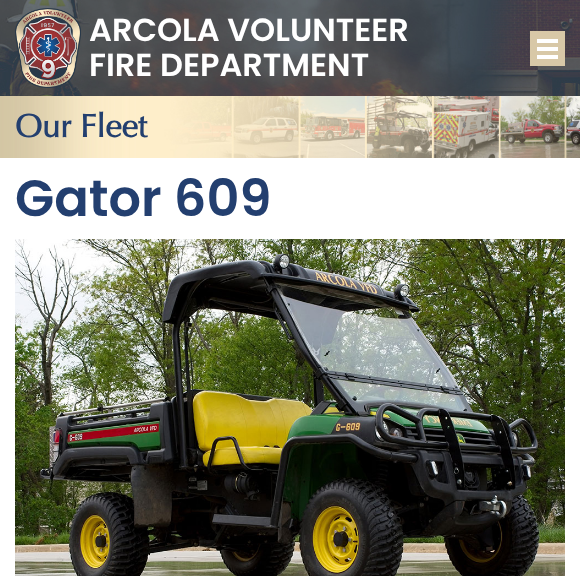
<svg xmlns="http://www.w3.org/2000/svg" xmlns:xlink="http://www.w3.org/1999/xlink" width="580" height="576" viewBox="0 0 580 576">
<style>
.cls-1{font:600 32px Poppins;fill:#ffffff}
.cls-2{font:bold 32.5px Optima;fill:#233f6f}
.cls-3{font:600 51px Poppins;fill:#233f6f}
</style>
<rect width="100%" height="100%" fill="#ffffff"/>
<image xlink:href="image0.png" x="0" y="0" width="580" height="96"/>
<rect fill="#464646" fill-opacity="0.3" x="0" y="0" width="580" height="96"/>
<image xlink:href="image1.png" x="15" y="8" width="66" height="80"/>
<rect fill="#d8c8a7" x="530" y="31" width="35" height="35"/>
<rect fill="#ffffff" x="537" y="47" width="21" height="4"/>
<rect fill="#ffffff" x="537" y="39" width="21" height="4"/>
<rect fill="#ffffff" x="537" y="55" width="21" height="4"/>
<image xlink:href="image2.png" x="0" y="96" width="580" height="62"/>
<image xlink:href="image3.png" x="15" y="239" width="550" height="337"/>
<text class="cls-1"><tspan x="89" y="41">ARCOLA VOLUNTEER</tspan><tspan x="89" y="76">FIRE DEPARTMENT</tspan></text>
<text class="cls-2" x="15" y="137">Our Fleet</text>
<text class="cls-3" x="15" y="216">Gator 609</text>
</svg>
